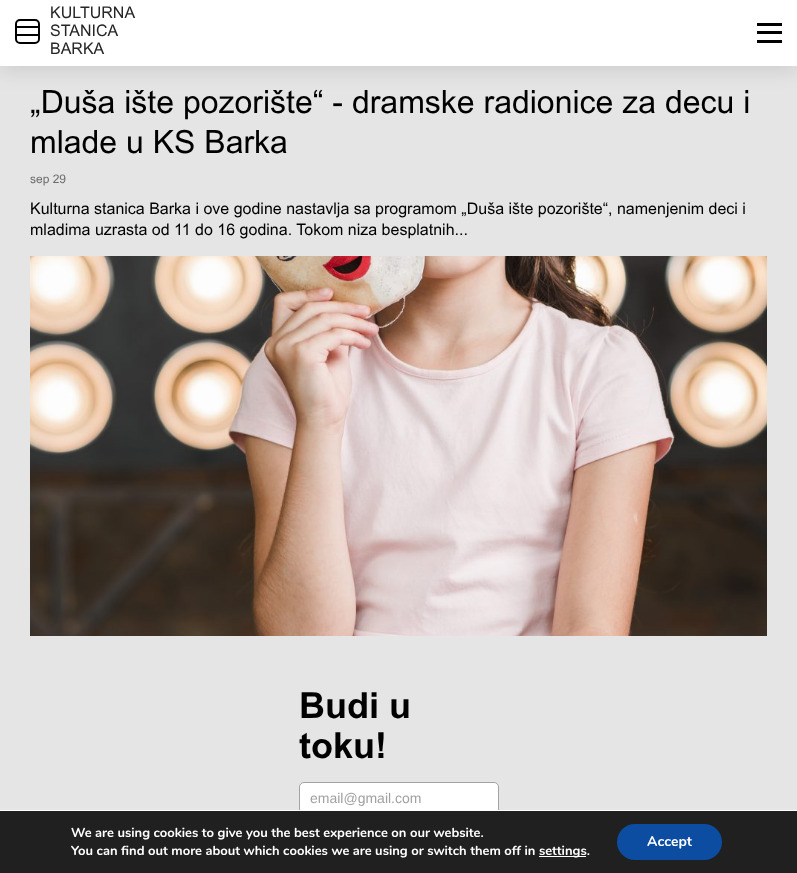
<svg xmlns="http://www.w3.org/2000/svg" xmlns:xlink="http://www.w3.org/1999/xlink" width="797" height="873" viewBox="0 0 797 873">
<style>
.cls-1{font:16px Arial;fill:#272626}
.cls-2{font:32px Arial;fill:#000000}
.cls-3{font:12px Arial;fill:#6c6c6c}
.cls-4{font:16px Arial;fill:#000000}
.cls-5{font:bold 36px Arial;fill:#000000}
.cls-6{font:14px Liberation Sans;fill:#a1a1a1}
.cls-7{font:bold 13px Nunito;fill:#ffffff}
.cls-8{font:bold 14px Nunito;fill:#ffffff}
</style>
<rect width="100%" height="100%" fill="#e5e5e5"/>
<rect fill="#000000" fill-opacity="0.1" filter="blur(10px)" x="0" y="4" width="797" height="67"/>
<rect fill="#ffffff" x="0" y="0" width="797" height="66"/>
<rect fill="none" stroke="#000000" stroke-width="2" x="16" y="20" width="23" height="23" rx="4"/>
<rect fill="#000000" x="17" y="26" width="21" height="2"/>
<rect fill="#000000" x="17" y="34" width="21" height="2"/>
<rect fill="#000000" x="757" y="23" width="25" height="3"/>
<rect fill="#000000" x="757" y="31" width="25" height="3"/>
<rect fill="#000000" x="757" y="40" width="25" height="3"/>
<image xlink:href="image0.png" x="30" y="256" width="737" height="380"/>
<rect fill="#ffffff" stroke="#a3a3a3" x="299.5" y="782.5" width="199" height="31" rx="4.5"/>
<rect fill="#202020" x="0" y="811" width="797" height="62"/>
<rect fill="#ffffff" x="0" y="810" width="797" height="1"/>
<rect fill="#ffffff" x="539" y="856" width="47" height="1"/>
<rect fill="#0c4da2" x="617" y="824" width="105" height="36" rx="18"/>
<text class="cls-1"><tspan x="50" y="18">KULTURNA</tspan><tspan x="50" y="36">STANICA</tspan><tspan x="50" y="54">BARKA</tspan></text>
<text class="cls-2"><tspan x="30" y="113">„Duša ište pozorište“ - dramske radionice za decu i</tspan><tspan x="30" y="153">mlade u KS Barka</tspan></text>
<text class="cls-3" x="30" y="183">sep 29</text>
<text class="cls-4"><tspan x="30" y="214">Kulturna stanica Barka i ove godine nastavlja sa programom „Duša ište pozorište“, namenjenim deci i</tspan><tspan x="30" y="235">mladima uzrasta od 11 do 16 godina. Tokom niza besplatnih...</tspan></text>
<text class="cls-5"><tspan x="299" y="718">Budi u</tspan><tspan x="299" y="758">toku!</tspan></text>
<text class="cls-6" x="310" y="803">email@gmail.com</text>
<text class="cls-7"><tspan x="71" y="837">We are using cookies to give you the best experience on our website.</tspan><tspan x="71" y="855">You can find out more about which cookies we are using or switch them off in</tspan></text>
<text class="cls-7" x="539" y="855">settings.</text>
<text class="cls-8" x="647" y="846">Accept</text>
</svg>
